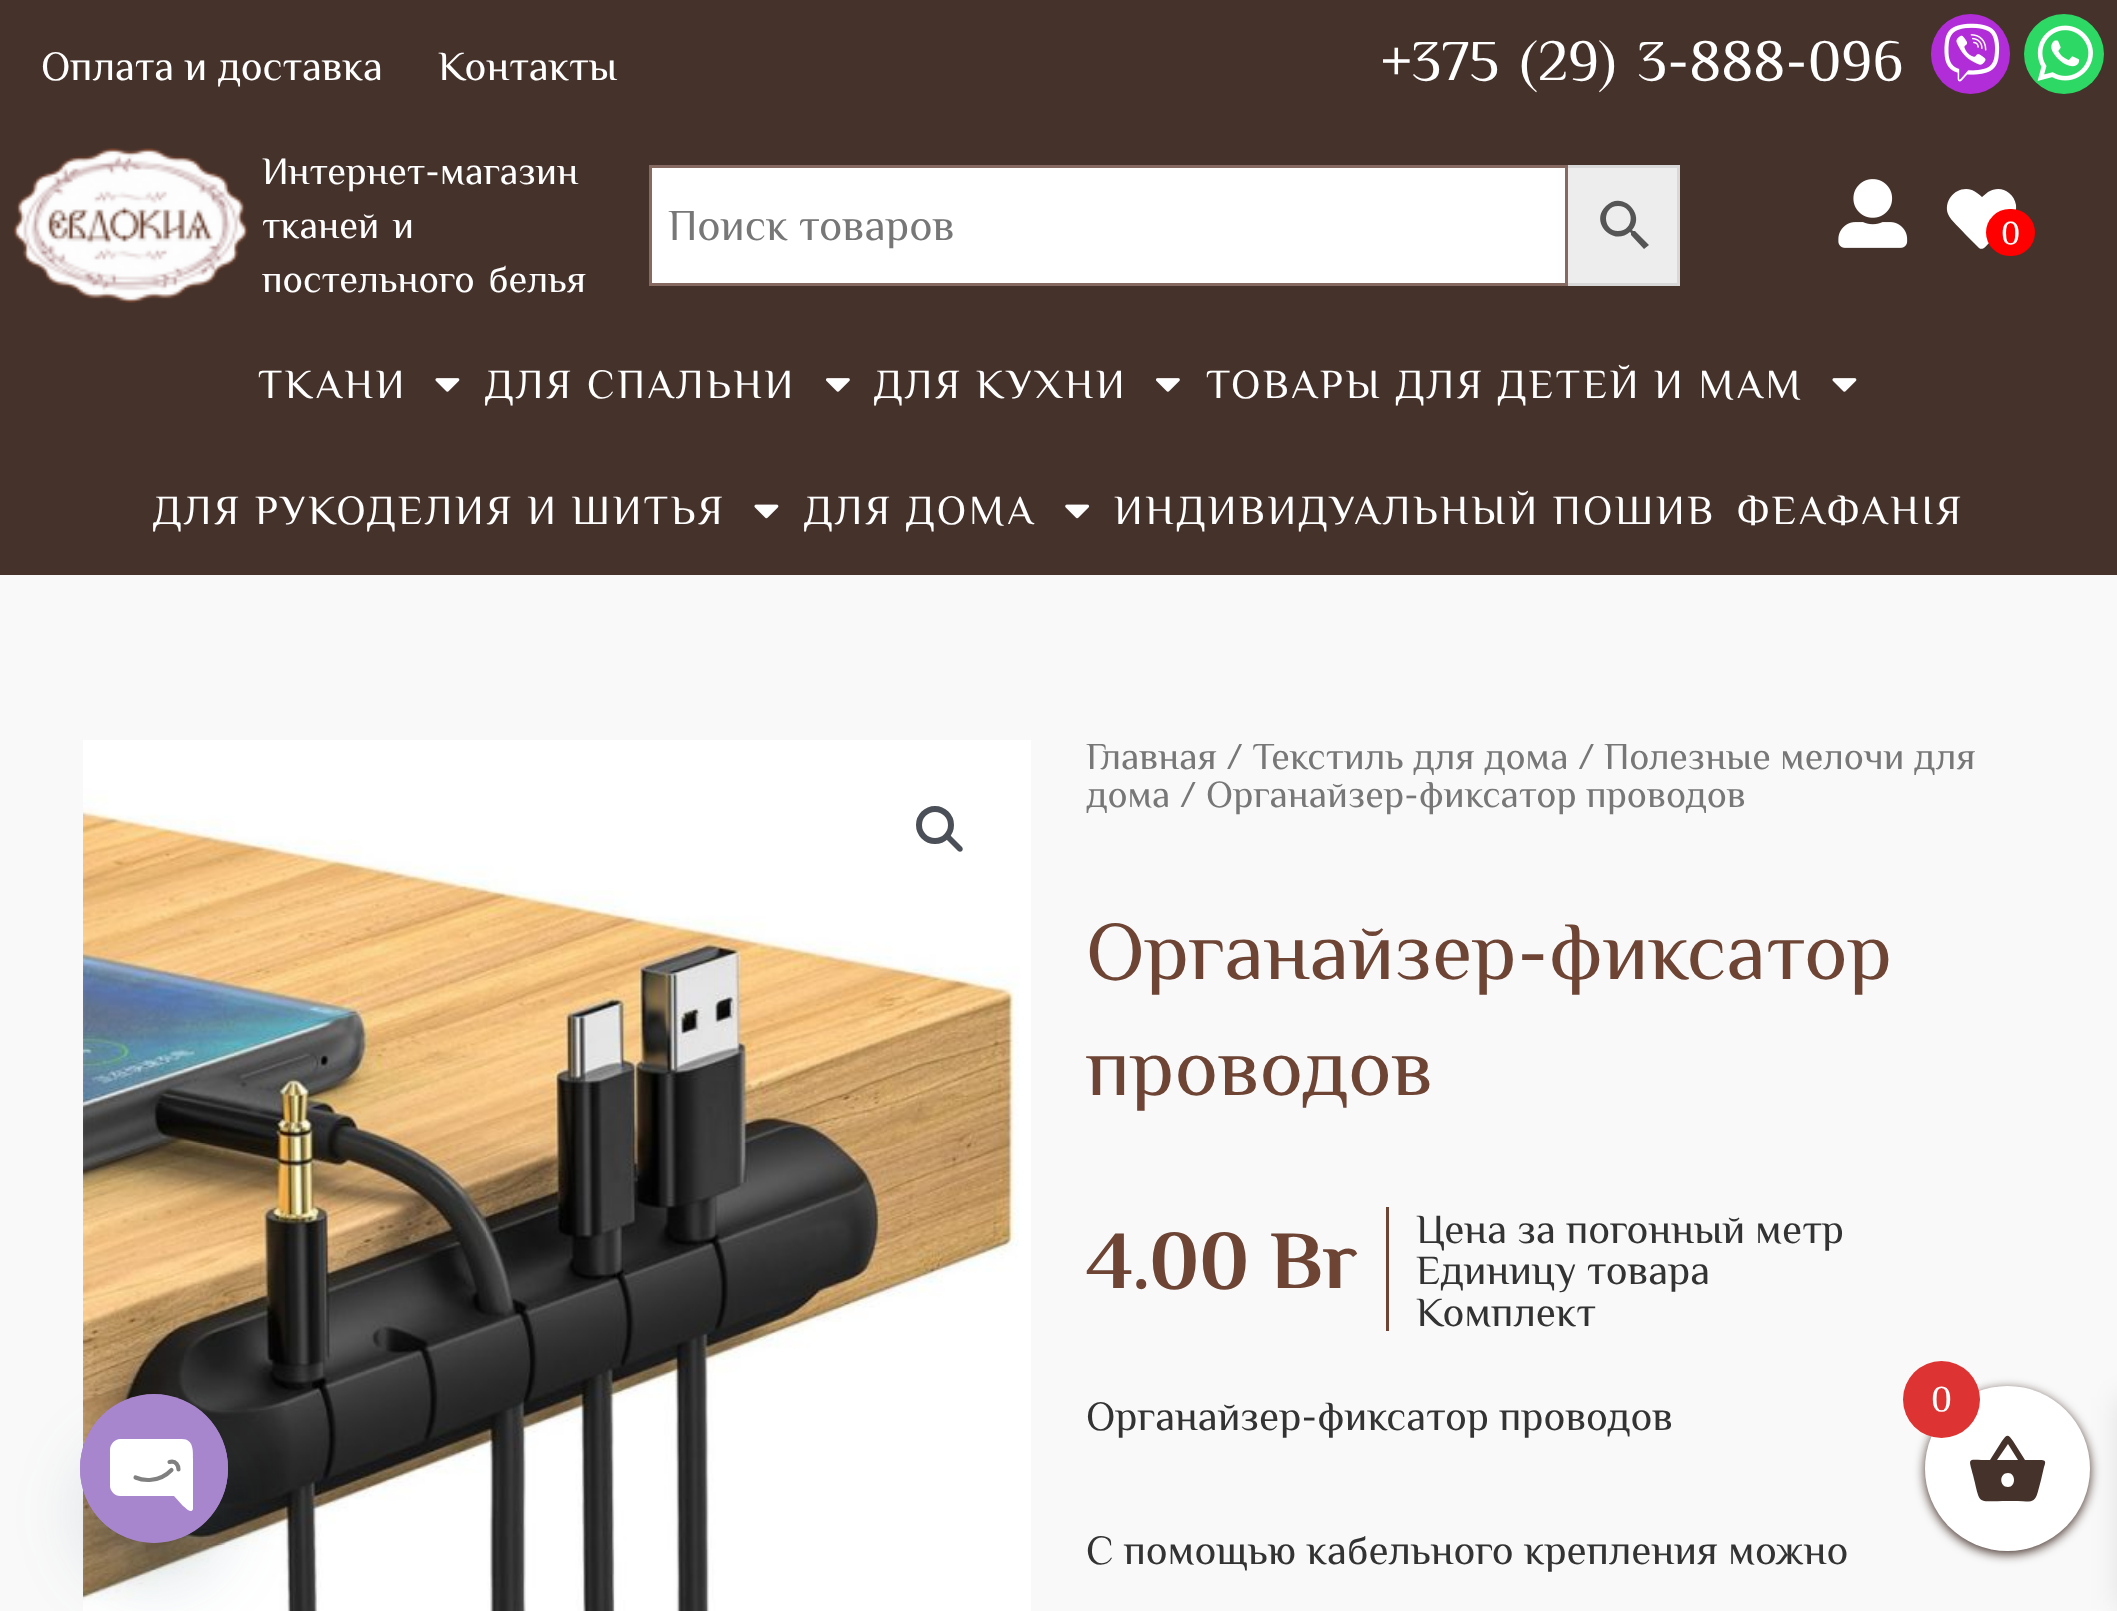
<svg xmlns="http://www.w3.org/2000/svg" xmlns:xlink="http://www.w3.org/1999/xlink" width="2117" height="1611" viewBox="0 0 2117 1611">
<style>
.cls-1{font:41.25px Philosopher;fill:#ffffff}
.cls-2{font:57.75px Philosopher;fill:#ffffff}
.cls-3{font:38.5px Philosopher;fill:#ffffff}
.cls-4{font:44px Philosopher;fill:#777777}
.cls-5{font:33px Philosopher;fill:#ffffff}
.cls-6{font:41.25px Philosopher;letter-spacing:2.75px;fill:#ffffff}
.cls-7{font:37.95px Philosopher;fill:#777777}
.cls-8{font:82.5px Philosopher;fill:#6e4535}
.cls-9{font:bold 82.5px Philosopher;fill:#6e4535}
.cls-10{font:41.25px Philosopher;fill:#333333}
.cls-11{font:36px Philosopher;fill:#ffffff}
</style>
<rect width="100%" height="100%" fill="#f9f9f9"/>
<rect fill="#45322b" x="0" y="0" width="2117" height="575"/>
<rect fill="#b12dd8" x="1931" y="14" width="79" height="80" rx="39.5"/>
<image xlink:href="image0.png" x="1944" y="23" width="56" height="59"/>
<circle fill="#2dd864" cx="2064" cy="54" r="40"/>
<image xlink:href="image1.png" x="2037" y="25" width="56" height="56"/>
<image xlink:href="image2.png" x="13" y="148" width="235" height="155"/>
<rect fill="#ededed" stroke="#d8d8d8" stroke-width="3" x="1566.5" y="166.5" width="112" height="118"/>
<rect fill="#ffffff" stroke="#866a62" stroke-width="3" x="650.5" y="166.5" width="916" height="118"/>
<path fill="#555555" d="M1635 231H1633L1632 230C1646 214 1622 190 1606 206C1589 222 1613 247 1630 232L1631 233V235L1644 249L1649 245ZM1618 231C1602 231 1602 206 1618 206C1635 206 1635 231 1618 231Z"/>
<image xlink:href="image3.png" x="1838" y="179" width="70" height="69"/>
<path fill="#ffffff" d="M2009 193C2013 196 2015 200 2016 205C2017 214 2012 219 2006 225L1989 243C1987 245 1983 251 1979 248L1965 234C1961 229 1951 221 1948 214C1943 200 1957 185 1972 190C1976 192 1979 194 1982 197L1988 192C1995 188 2003 188 2009 193Z"/>
<rect fill="#ff0000" x="1986" y="209" width="49" height="47" rx="23.5"/>
<image xlink:href="image4.png" x="435" y="378" width="25" height="14"/>
<image xlink:href="image5.png" x="826" y="378" width="24" height="14"/>
<image xlink:href="image5.png" x="1156" y="378" width="24" height="14"/>
<image xlink:href="image4.png" x="1832" y="378" width="25" height="14"/>
<image xlink:href="image6.png" x="754" y="504" width="25" height="15"/>
<image xlink:href="image7.png" x="1065" y="504" width="25" height="15"/>
<image xlink:href="image8.png" x="83" y="740" width="948" height="871"/>
<circle fill="none" stroke="#4b4f58" stroke-width="6" cx="935" cy="825" r="16"/>
<path fill="#4b4f58" d="M946.5 835.5C947.5 834.5 949.5 834.5 950.5 835.5L962 847C963 848 963 850 962 851C961 852 959 852 958 851L946.5 839.5C945.5 838.5 945.5 836.5 946.5 835.5Z"/>
<rect fill="#6e4535" x="1386" y="1207" width="3" height="124"/>
<rect fill="#49687e" fill-opacity="0.16" filter="blur(33px)" x="80" y="1438" width="148" height="149" rx="74"/>
<rect fill="#a886cd" x="80" y="1394" width="148" height="149" rx="74"/>
<circle fill="#a886cd" cx="154" cy="1468.5" r="74"/>
<path fill="#ffffff" d="M182 1439H120C115 1439 110 1444 110 1450V1486C110 1491 115 1496 120 1496H174L183 1506C184 1506 191 1515 193 1509V1459C193 1452 194 1439 182 1439Z"/>
<path fill="none" stroke="#808080" stroke-width="4.1" stroke-linecap="round" stroke-linejoin="round" d="M135.5 1477.5C142.5 1480.5 159 1483 171.5 1470M178.5 1469.5C178.5 1466.5 176.5 1460 169.5 1462"/>
<rect fill="#45322b" filter="blur(5.5px)" x="1925" y="1389" width="165" height="165" rx="82.5"/>
<rect fill="#000000" fill-opacity="0.1" filter="blur(14px)" x="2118" y="1397" width="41" height="212"/>
<circle fill="#ffffff" cx="2007.5" cy="1468.5" r="82.5"/>
<path fill="#45322b" d="M2008 1487C2016 1487 2016 1473 2008 1473C1999 1473 1999 1487 2008 1487ZM1997 1460H2018L2008 1444ZM2025 1460H2039C2046 1460 2046 1461 2044 1467L2041 1480C2034 1506 2038 1501 2008 1501C1975 1501 1981 1506 1973 1475C1968 1456 1967 1460 1990 1460L2002 1441C2007 1434 2008 1434 2013 1441Z"/>
<circle fill="#dd3333" cx="1941.5" cy="1399.5" r="38.5"/>
<text class="cls-1" x="41" y="80">Оплата и доставка</text>
<text class="cls-1" x="438" y="80">Контакты</text>
<text class="cls-2" x="1381" y="80" word-spacing="6">+375 (29) 3-888-096</text>
<text class="cls-3"><tspan x="262" y="184">Интернет-магазин</tspan><tspan x="262" y="238" word-spacing="4">тканей и</tspan><tspan x="262" y="292" word-spacing="4">постельного белья</tspan></text>
<text class="cls-4" x="668" y="240">Поиск товаров</text>
<text class="cls-5" x="2001" y="244">0</text>
<text class="cls-6" x="258" y="398">TКАНИ</text>
<text class="cls-6" x="485" y="398">ДЛЯ СПАЛЬНИ</text>
<text class="cls-6" x="874" y="398">ДЛЯ КУХНИ</text>
<text class="cls-6" x="1206" y="398">ТОВАРЫ ДЛЯ ДЕТЕЙ И МАМ</text>
<text class="cls-6" x="153" y="524">ДЛЯ РУКОДЕЛИЯ И ШИТЬЯ</text>
<text class="cls-6" x="804" y="524">ДЛЯ ДОМА</text>
<text class="cls-6" x="1114" y="524">ИНДИВИДУАЛЬНЫЙ ПОШИВ</text>
<text class="cls-6" x="1737" y="524">ФЕАФАНІЯ</text>
<text class="cls-7"><tspan x="1086" y="769">Главная / Текстиль для дома / Полезные мелочи для</tspan><tspan x="1086" y="807">дома / Органайзер-фиксатор проводов</tspan></text>
<text class="cls-8"><tspan x="1086" y="979">Органайзер-фиксатор</tspan><tspan x="1086" y="1095">проводов</tspan></text>
<text class="cls-9" x="1086" y="1288">4.00 Br</text>
<text class="cls-10"><tspan x="1416" y="1243">Цена за погонный метр</tspan><tspan x="1416" y="1284">Единицу товара</tspan><tspan x="1416" y="1326">Комплект</tspan></text>
<text class="cls-10" x="1086" y="1430">Органайзер-фиксатор проводов</text>
<text class="cls-10" x="1086" y="1564">С помощью кабельного крепления можно</text>
<text class="cls-11" x="1931" y="1411">0</text>
</svg>
